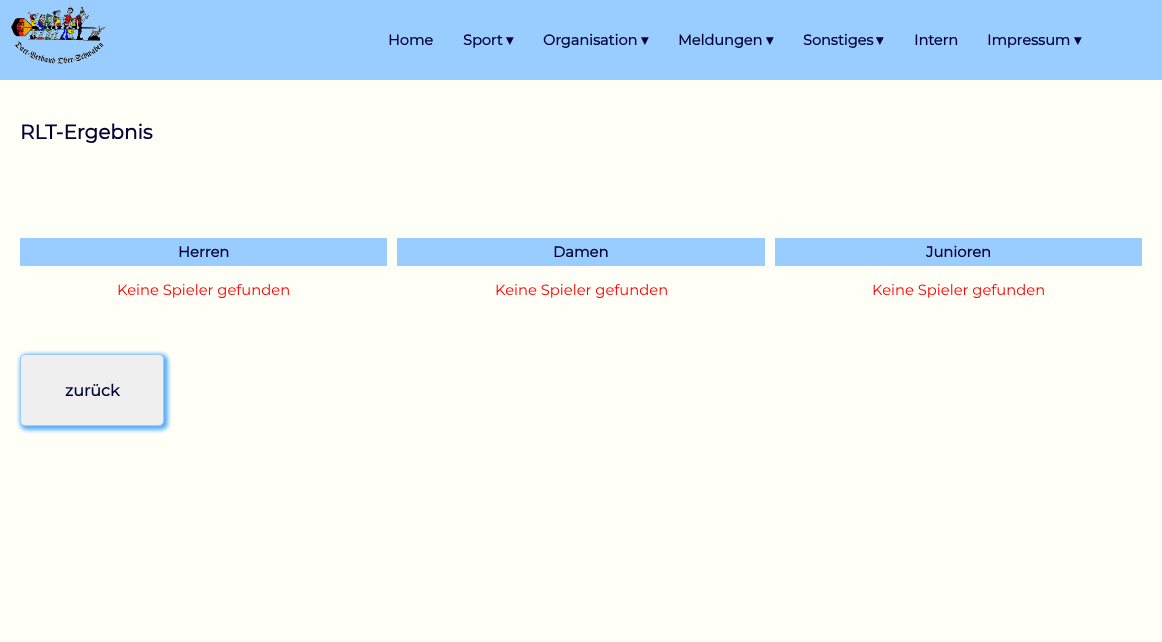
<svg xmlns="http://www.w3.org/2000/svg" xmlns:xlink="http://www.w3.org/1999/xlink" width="1162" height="642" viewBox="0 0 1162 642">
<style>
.cls-1{font:bold 14.5px Montserrat;fill:#000033}
.cls-2{font:bold 14.5px DejaVu Sans;fill:#000033}
.cls-3{font:bold 20px Montserrat;fill:#000033}
.cls-4{font:bold 14.75px Montserrat;fill:#000033}
.cls-5{font:100 14.75px Montserrat;fill:#ff0000}
.cls-6{font:bold 16px Montserrat;fill:#000033}
</style>
<rect width="100%" height="100%" fill="#fffff8"/>
<rect fill="#99ccff" x="0" y="0" width="1162" height="80"/>
<image xlink:href="image0.png" x="11" y="6" width="95" height="58"/>
<rect fill="#99ccff" x="20" y="238" width="367" height="28"/>
<rect fill="#99ccff" x="397" y="238" width="368" height="28"/>
<rect fill="#99ccff" x="775" y="238" width="367" height="28"/>
<rect fill="#58acfa" filter="blur(2px)" x="20" y="354" width="148" height="76" rx="7"/>
<rect fill="#efefef" stroke="#99ccff" x="20.5" y="354.5" width="143" height="71" rx="4.5"/>
<text class="cls-1" x="388" y="45">Home</text>
<text class="cls-1" x="463" y="45">Sport</text>
<text class="cls-2" x="506" y="45">▾</text>
<text class="cls-1" x="543" y="45">Organisation</text>
<text class="cls-2" x="641" y="45">▾</text>
<text class="cls-1" x="678" y="45">Meldungen</text>
<text class="cls-2" x="766" y="45">▾</text>
<text class="cls-1" x="803" y="45">Sonstiges</text>
<text class="cls-2" x="876" y="45">▾</text>
<text class="cls-1" x="914" y="45">Intern</text>
<text class="cls-1" x="987" y="45">Impressum</text>
<text class="cls-2" x="1074" y="45">▾</text>
<text class="cls-3" x="20" y="139">RLT-Ergebnis</text>
<text class="cls-4" x="178" y="257">Herren</text>
<text class="cls-5" x="117" y="295">Keine Spieler gefunden</text>
<text class="cls-4" x="553" y="257">Damen</text>
<text class="cls-5" x="495" y="295">Keine Spieler gefunden</text>
<text class="cls-4" x="926" y="257">Junioren</text>
<text class="cls-5" x="872" y="295">Keine Spieler gefunden</text>
<text class="cls-6" x="65" y="396">zurück</text>
</svg>
